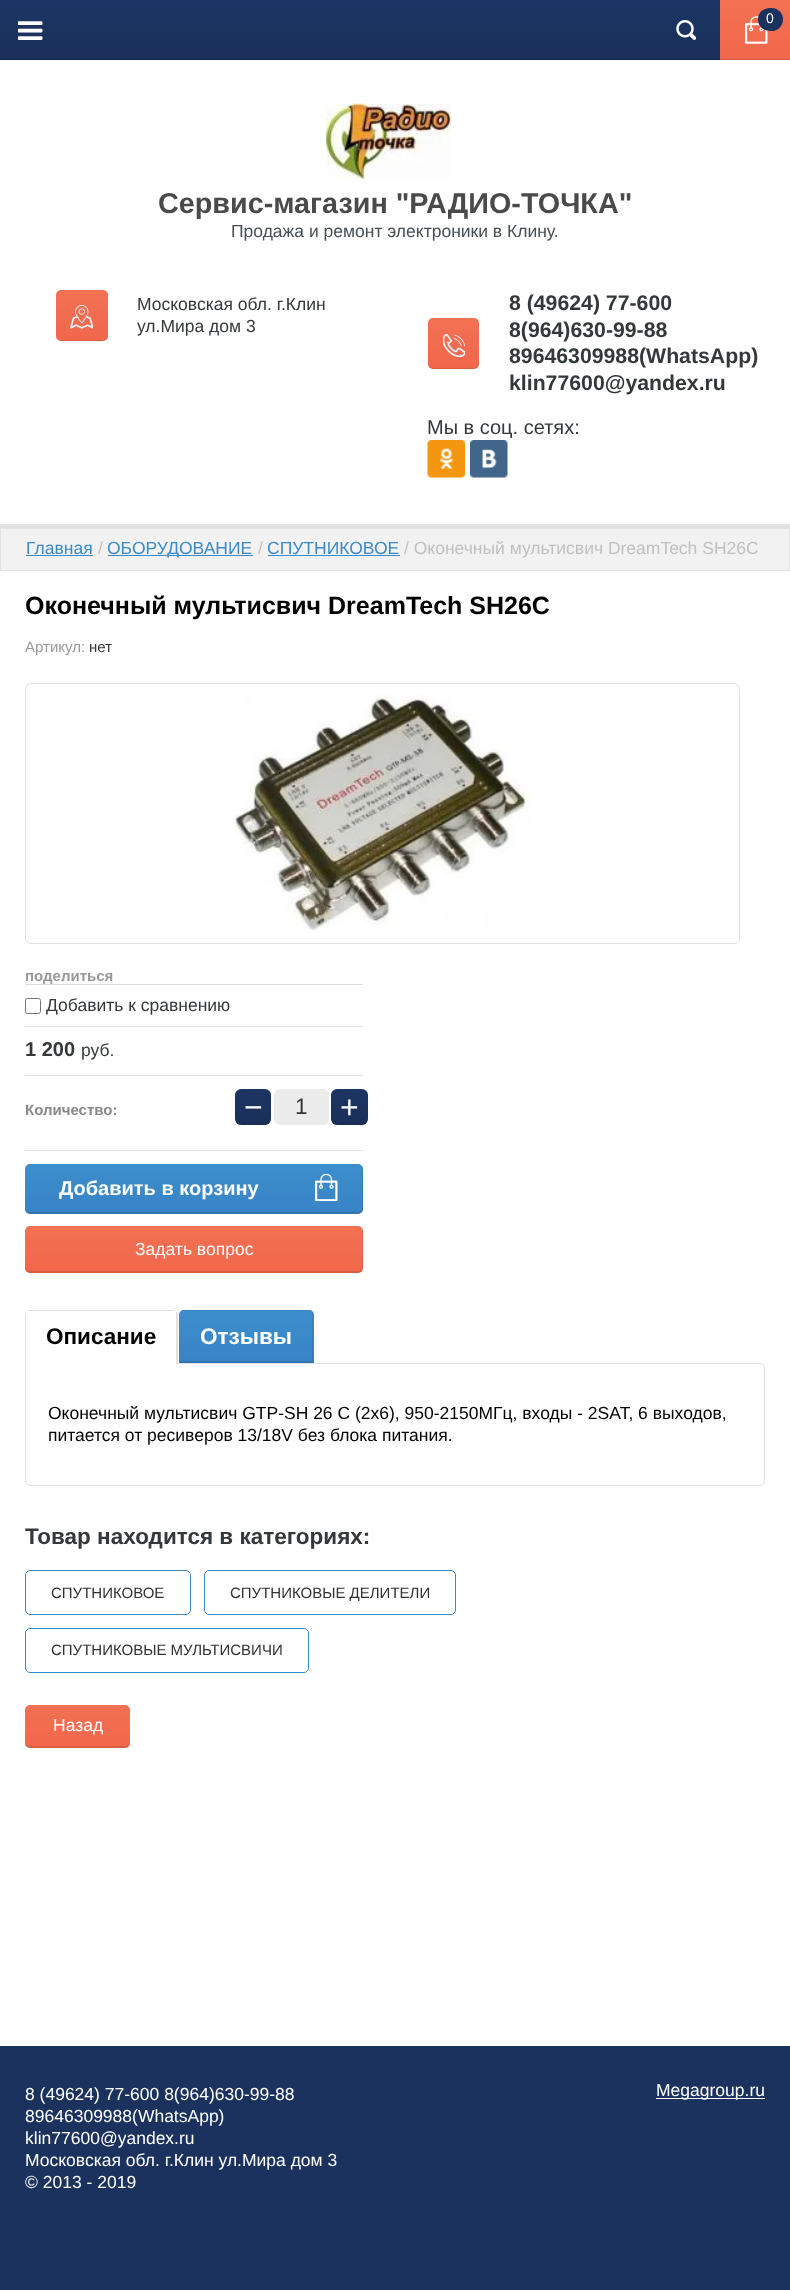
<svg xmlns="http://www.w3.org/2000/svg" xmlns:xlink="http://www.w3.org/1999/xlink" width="790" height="2290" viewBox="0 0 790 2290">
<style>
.cls-1{font:14px Liberation Sans;fill:#ffffff}
.cls-2{font:bold 28.75px Liberation Sans;fill:#4a4a4a}
.cls-3{font:17.5px Liberation Sans;fill:#474f54}
.cls-4{font:17.5px Liberation Sans;fill:#34383a}
.cls-5{font:bold 21.25px Liberation Sans;fill:#34383a}
.cls-6{font:20px Liberation Sans;fill:#34383a}
.cls-7{font:17.5px Liberation Sans;fill:#3a89c9}
.cls-8{font:17.5px Liberation Sans;fill:#c0c0c0}
.cls-9{font:bold 25px Liberation Sans;fill:#000000}
.cls-10{font:15px Liberation Sans;fill:#999999}
.cls-11{font:15px Liberation Sans;fill:#34383a}
.cls-12{font:bold 15px Liberation Sans;fill:#999999}
.cls-13{font:bold 20px Liberation Sans;fill:#34383a}
.cls-14{font:bold 15px Liberation Sans;fill:#888888}
.cls-15{font:32px Liberation Sans;fill:#ffffff}
.cls-16{font:22.5px Liberation Sans;fill:#34383a}
.cls-17{font:bold 20px Liberation Sans;fill:#ffffff}
.cls-18{font:17.5px Liberation Sans;fill:#ffffff}
.cls-19{font:bold 22.5px Liberation Sans;fill:#000000}
.cls-20{font:bold 22.5px Liberation Sans;fill:#ffffff}
.cls-21{font:17.5px Liberation Sans;fill:#000000}
.cls-22{font:bold 22.5px Liberation Sans;fill:#34383a}
.cls-23{font:15px Liberation Sans;fill:#303030}
</style>
<defs>
<linearGradient id="g1" gradientUnits="userSpaceOnUse" x1="395" y1="60" x2="395" y2="0"><stop offset="0" stop-color="#1a305a"/><stop offset="1" stop-color="#1c3564"/></linearGradient>
<linearGradient id="g2" gradientUnits="userSpaceOnUse" x1="755" y1="60" x2="755" y2="0"><stop offset="0" stop-color="#f1674b"/><stop offset="1" stop-color="#f37153"/></linearGradient>
<linearGradient id="g3" gradientUnits="userSpaceOnUse" x1="82" y1="341" x2="82" y2="290"><stop offset="0" stop-color="#f1674b"/><stop offset="1" stop-color="#f37153"/></linearGradient>
<linearGradient id="g4" gradientUnits="userSpaceOnUse" x1="453" y1="369" x2="453" y2="318"><stop offset="0" stop-color="#f1674b"/><stop offset="1" stop-color="#f37153"/></linearGradient>
<linearGradient id="g5" gradientUnits="userSpaceOnUse" x1="253" y1="1125" x2="253" y2="1089"><stop offset="0" stop-color="#1a305a"/><stop offset="1" stop-color="#1c3564"/></linearGradient>
<linearGradient id="g6" gradientUnits="userSpaceOnUse" x1="349" y1="1125" x2="349" y2="1089"><stop offset="0" stop-color="#1a305a"/><stop offset="1" stop-color="#1c3564"/></linearGradient>
<linearGradient id="g7" gradientUnits="userSpaceOnUse" x1="194" y1="1214" x2="194" y2="1164"><stop offset="0" stop-color="#3783c6"/><stop offset="1" stop-color="#3d8fcc"/></linearGradient>
<linearGradient id="g8" gradientUnits="userSpaceOnUse" x1="194" y1="1273" x2="194" y2="1226"><stop offset="0" stop-color="#f1674b"/><stop offset="1" stop-color="#f37153"/></linearGradient>
<clipPath id="clip1"><path d="M184 1310H309C312 1310 314 1312 314 1315V1363H179V1315C179 1312 181 1310 184 1310Z"/></clipPath>
<linearGradient id="g9" gradientUnits="userSpaceOnUse" x1="246" y1="1311" x2="246" y2="1260"><stop offset="0" stop-color="#3783c6"/><stop offset="1" stop-color="#3d8fcc"/></linearGradient>
<linearGradient id="g10" gradientUnits="userSpaceOnUse" x1="246" y1="1363" x2="246" y2="1311"><stop offset="0" stop-color="#3783c6"/><stop offset="1" stop-color="#3d8fcc"/></linearGradient>
<linearGradient id="g11" gradientUnits="userSpaceOnUse" x1="78" y1="1748" x2="78" y2="1705"><stop offset="0" stop-color="#f1674b"/><stop offset="1" stop-color="#f37153"/></linearGradient>
</defs>
<rect width="100%" height="100%" fill="#ffffff"/>
<rect fill="url(#g1)" x="0" y="0" width="720" height="59"/>
<rect fill="#172b51" x="0" y="59" width="720" height="1"/>
<rect fill="url(#g2)" x="720" y="0" width="70" height="59"/>
<rect fill="#d95d44" x="720" y="59" width="70" height="1"/>
<image xlink:href="image0.png" x="745" y="16" width="23" height="28"/>
<rect fill="#1b325f" x="758" y="8" width="25" height="23" rx="11.5"/>
<image xlink:href="image1.png" x="676" y="20" width="20" height="20"/>
<image xlink:href="image2.png" x="18" y="21" width="25" height="19"/>
<image xlink:href="image3.png" x="326" y="103" width="126" height="76"/>
<rect fill="url(#g3)" x="56" y="290" width="52" height="51" rx="5"/>
<path fill="#000000" fill-opacity="0.1" d="M56 335C56 342 62 341 68 341H96C102 341 108 342 108 335C108 338 105 340 102 340H61C58 340 56 338 56 335Z"/>
<image xlink:href="image4.png" x="70" y="305" width="23" height="24"/>
<rect fill="url(#g4)" x="428" y="318" width="51" height="51" rx="5"/>
<path fill="#000000" fill-opacity="0.1" d="M428 362C428 370 433 369 440 369H467C474 369 479 370 479 362C479 365 477 368 474 368H432C430 368 428 365 428 362Z"/>
<image xlink:href="image5.png" x="443" y="334" width="22" height="24"/>
<image xlink:href="image6.png" x="427" y="440" width="38" height="38"/>
<image xlink:href="image7.png" x="470" y="440" width="38" height="38"/>
<rect fill="#f2f2f2" x="1" y="529" width="788" height="41"/>
<rect fill="#e3e3e3" x="1" y="525" width="788" height="4"/>
<rect fill="none" stroke="#e1e1e1" x="0.5" y="524.5" width="789" height="46"/>
<rect fill="#3a89c9" x="26" y="555" width="67" height="1"/>
<rect fill="#3a89c9" x="108" y="555" width="145" height="1"/>
<rect fill="#3a89c9" x="268" y="555" width="132" height="1"/>
<rect fill="none" stroke="#e1e1e1" x="25.5" y="683.5" width="714" height="260" rx="5.5"/>
<image xlink:href="image8.png" x="233" y="694" width="297" height="238"/>
<rect fill="#dedede" x="25" y="984" width="338" height="1"/>
<rect fill="none" stroke="#767676" x="25.5" y="998.5" width="15" height="15" rx="2"/>
<rect fill="#e1e1e1" x="25" y="1026" width="338" height="1"/>
<rect fill="#e1e1e1" x="25" y="1075" width="338" height="1"/>
<rect fill="#e1e1e1" x="25" y="1150" width="338" height="1"/>
<rect fill="url(#g5)" x="235" y="1089" width="36" height="36" rx="6"/>
<path fill="#000000" fill-opacity="0.1" d="M235 1118C235 1125 239.5 1125 245 1125H261C266.5 1125 271 1125 271 1118C271 1121 268 1124 265 1124H241C238 1124 235 1121 235 1118Z"/>
<rect fill="#ececec" x="274" y="1089" width="55" height="36" rx="6"/>
<rect fill="url(#g6)" x="331" y="1089" width="37" height="36" rx="6"/>
<path fill="#000000" fill-opacity="0.1" d="M331 1118C331 1125 335.5 1125 341 1125H358C363.5 1125 368 1125 368 1118C368 1121 365 1124 361 1124H338C334 1124 331 1121 331 1118Z"/>
<rect fill="url(#g7)" x="25" y="1164" width="338" height="50" rx="5"/>
<path fill="#000000" fill-opacity="0.1" d="M25 1208V1209C25 1212 27 1214 30 1214H358C361 1214 363 1212 363 1209V1169C363 1168 362 1166 362 1165V1168V1208C362 1210 360 1212 358 1212H30C27 1212 25 1210 25 1208Z"/>
<image xlink:href="image9.png" x="315" y="1174" width="23" height="27"/>
<rect fill="url(#g8)" x="25" y="1226" width="338" height="47" rx="5"/>
<path fill="#000000" fill-opacity="0.1" d="M25 1266V1268C25 1271 27 1273 30 1273H358C361 1273 363 1271 363 1268V1231C363 1230 362 1228 361 1227L362 1230V1266C362 1269 360 1271 358 1271H30C27 1271 25 1269 25 1266Z"/>
<path fill="none" stroke="#e1e1e1" d="M25.5 1363.5H760C762.5 1363.5 764.5 1365.5 764.5 1368V1481C764.5 1483.5 762.5 1485.5 760 1485.5H30C27.5 1485.5 25.5 1483.5 25.5 1481Z"/>
<path fill="#ffffff" d="M30 1310H173C176 1310 178 1312 178 1315V1364H25V1315C25 1312 27 1310 30 1310Z"/>
<path fill="#e1e1e1" fill-rule="evenodd" d="M30 1310H172C175 1310 178 1312 178 1315V1364H25V1315C25 1312 27 1310 30 1310ZM30 1311H172C175 1311 176 1313 176 1315V1364H26V1315C26 1313 28 1311 30 1311Z"/>
<rect fill="#ffffff" x="26" y="1311" width="150" height="3"/>
<g clip-path="url(#clip1)">
<rect fill="url(#g9)" x="179" y="1310" width="135" height="1"/>
<rect fill="url(#g10)" x="179" y="1311" width="135" height="52"/>
</g>
<path fill="#000000" fill-opacity="0.1" d="M180 1361V1363H313V1314L312 1312V1361Z"/>
<rect fill="none" stroke="#3a89c9" x="25.5" y="1570.5" width="165" height="44" rx="4.5"/>
<rect fill="none" stroke="#3a89c9" x="204.5" y="1570.5" width="251" height="44" rx="4.5"/>
<rect fill="none" stroke="#3a89c9" x="25.5" y="1628.5" width="283" height="44" rx="4.5"/>
<rect fill="url(#g11)" x="25" y="1705" width="105" height="43" rx="5"/>
<path fill="#000000" fill-opacity="0.1" d="M25 1741V1743C25 1746 27 1748 30 1748H125C128 1748 130 1746 130 1743V1741C130 1744 128 1746 125 1746H30C27 1746 25 1744 25 1741Z"/>
<rect fill="#1b325f" x="0" y="2046" width="790" height="244"/>
<rect fill="#ffffff" x="656" y="2098" width="109" height="1"/>
<text class="cls-1" x="766" y="23">0</text>
<text class="cls-2" x="158" y="213">Сервис-магазин "РАДИО-ТОЧКА"</text>
<text class="cls-3" x="231" y="237">Продажа и ремонт электроники в Клину.</text>
<text class="cls-4"><tspan x="137" y="310">Московская обл. г.Клин</tspan><tspan x="137" y="332">ул.Мира дом 3</tspan></text>
<text class="cls-5"><tspan x="509" y="310">8 (49624) 77-600</tspan><tspan x="509" y="337">8(964)630-99-88</tspan><tspan x="509" y="363">89646309988(WhatsApp)</tspan><tspan x="509" y="390">klin77600@yandex.ru</tspan></text>
<text class="cls-6" x="427" y="434">Мы в соц. сетях:</text>
<text class="cls-7" x="26" y="554">Главная</text>
<text class="cls-8" x="98" y="554">/</text>
<text class="cls-7" x="107" y="554">ОБОРУДОВАНИЕ</text>
<text class="cls-8" x="258" y="554">/</text>
<text class="cls-7" x="267" y="554">СПУТНИКОВОЕ</text>
<text class="cls-8" x="404" y="554">/ Оконечный мультисвич DreamTech SH26C</text>
<text class="cls-9" x="25" y="614">Оконечный мультисвич DreamTech SH26C</text>
<text class="cls-10" x="25" y="652">Артикул:</text>
<text class="cls-11" x="89" y="652">нет</text>
<text class="cls-12" x="25" y="981">поделиться</text>
<text class="cls-4" x="46" y="1011">Добавить к сравнению</text>
<text class="cls-13" x="25" y="1056">1 200</text>
<text class="cls-4" x="81" y="1056">руб.</text>
<text class="cls-14" x="25" y="1115">Количество:</text>
<text class="cls-15" x="244" y="1118">−</text>
<text class="cls-16" x="295" y="1114">1</text>
<text class="cls-15" x="340" y="1118">+</text>
<text class="cls-17" x="59" y="1195">Добавить в корзину</text>
<text class="cls-18" x="135" y="1255">Задать вопрос</text>
<text class="cls-19" x="46" y="1344">Описание</text>
<text class="cls-20" x="200" y="1344">Отзывы</text>
<text class="cls-21"><tspan x="48" y="1419">Оконечный мультисвич GTP-SH 26 C (2х6), 950-2150МГц, входы - 2SAT, 6 выходов,</tspan><tspan x="48" y="1441">питается от ресиверов 13/18V без блока питания.</tspan></text>
<text class="cls-22" x="25" y="1544">Товар находится в категориях:</text>
<text class="cls-23" x="51" y="1598">СПУТНИКОВОЕ</text>
<text class="cls-23" x="230" y="1598">СПУТНИКОВЫЕ ДЕЛИТЕЛИ</text>
<text class="cls-23" x="51" y="1655">СПУТНИКОВЫЕ МУЛЬТИСВИЧИ</text>
<text class="cls-18" x="53" y="1731">Назад</text>
<text class="cls-18"><tspan x="25" y="2100">8 (49624) 77-600 8(964)630-99-88</tspan><tspan x="25" y="2122">89646309988(WhatsApp)</tspan><tspan x="25" y="2144">klin77600@yandex.ru</tspan><tspan x="25" y="2166">Московская обл. г.Клин ул.Мира дом 3</tspan></text>
<text class="cls-18" x="656" y="2096">Megagroup.ru</text>
<text class="cls-18" x="25" y="2188">© 2013 - 2019</text>
</svg>
